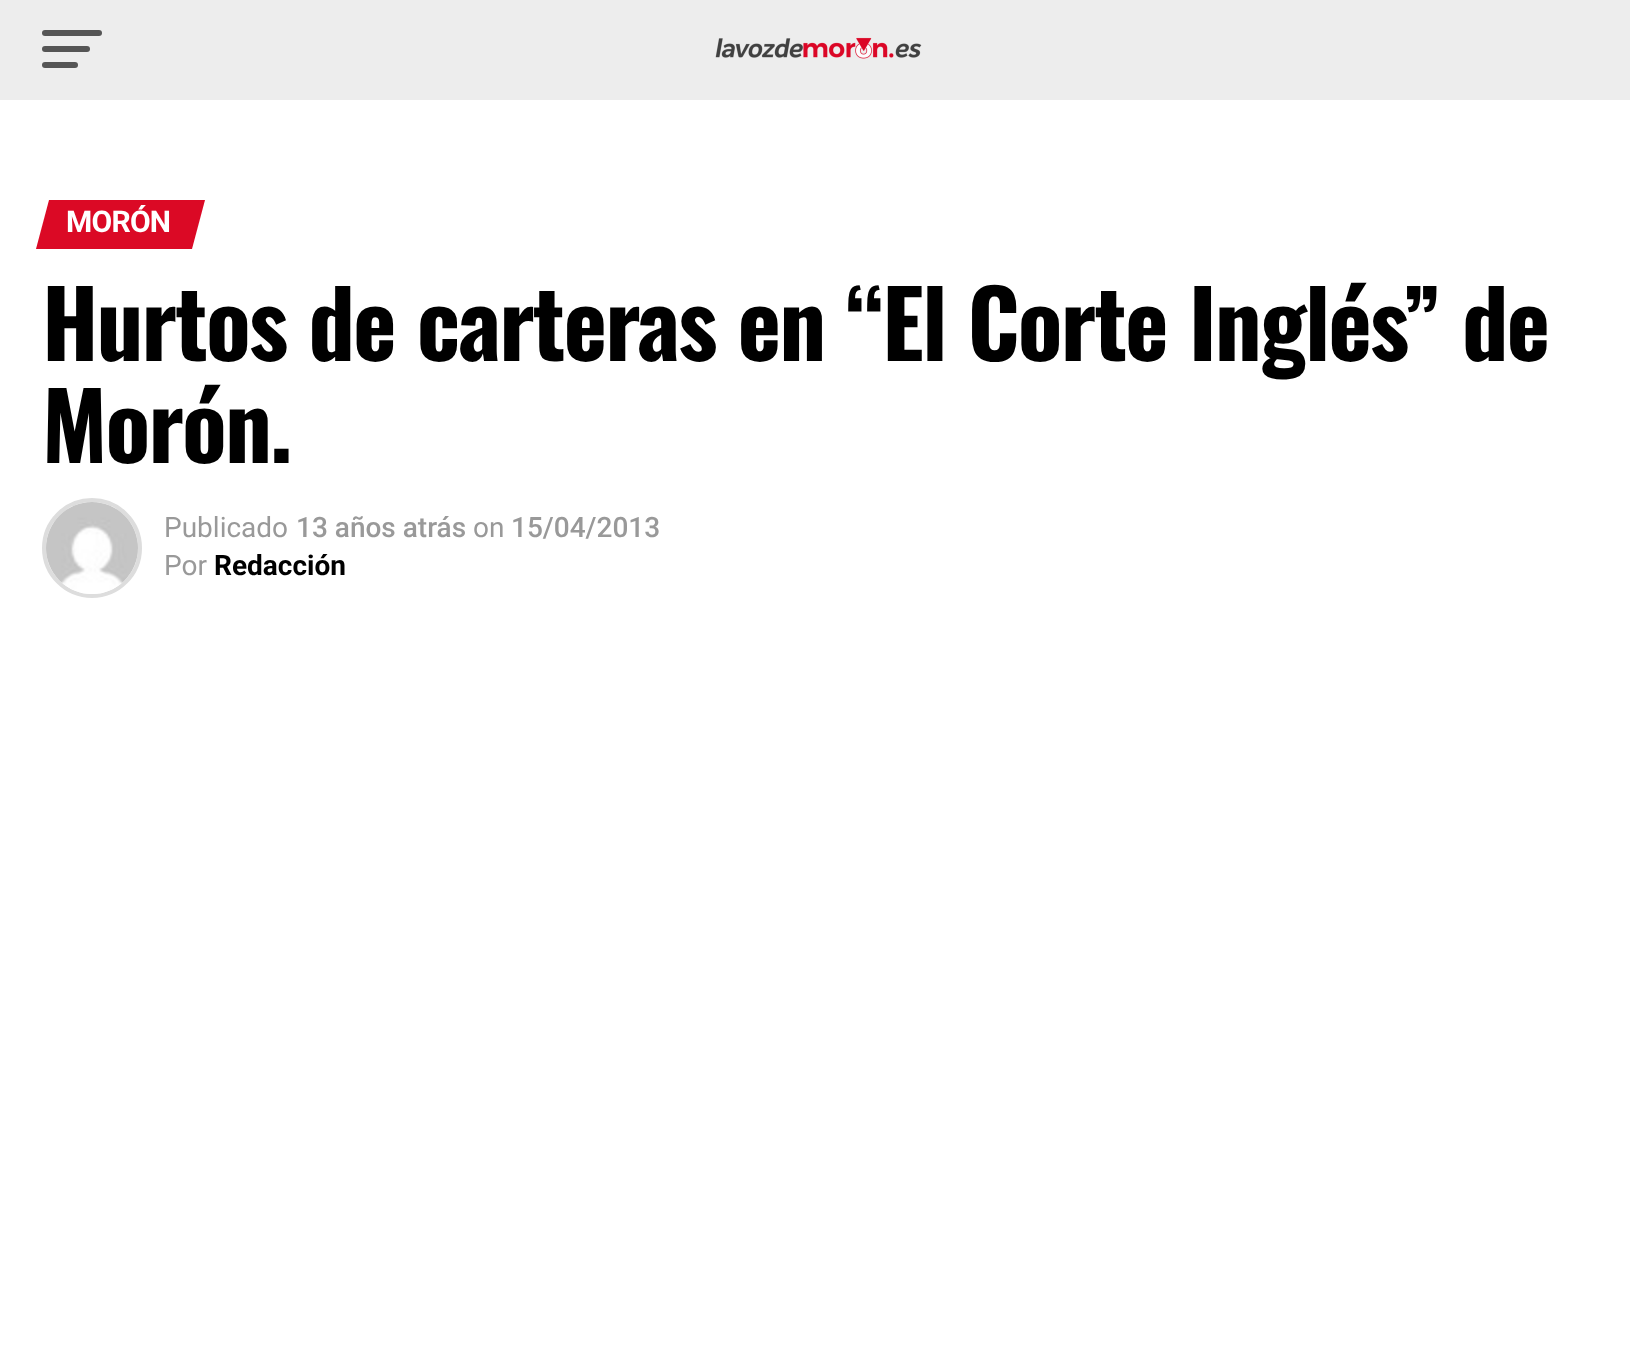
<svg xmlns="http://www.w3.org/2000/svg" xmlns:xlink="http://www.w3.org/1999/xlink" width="1630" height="1364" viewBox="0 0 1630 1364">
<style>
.cls-1{font:bold 30px Roboto;letter-spacing:-0.75px;fill:#ffffff}
.cls-2{font:bold 92.75px Oswald;letter-spacing:-1.85px;fill:#000000}
.cls-3{font:28px Roboto;fill:#999999}
.cls-4{font:500 28px Roboto;fill:#999999}
.cls-5{font:bold 28px Roboto;fill:#000000}
</style>
<rect width="100%" height="100%" fill="#ffffff"/>
<rect fill="#ededed" x="0" y="0" width="1630" height="100"/>
<rect fill="#555555" x="42" y="30" width="60" height="6" rx="3"/>
<rect fill="#555555" x="42" y="46" width="48" height="6" rx="3"/>
<rect fill="#555555" x="42" y="62" width="36" height="6" rx="3"/>
<image xlink:href="image0.png" x="715" y="37" width="207" height="22"/>
<path fill="#db0925" d="M49 200H205L192 249H36Z"/>
<circle fill="none" stroke="#dddddd" stroke-width="4" cx="92" cy="548" r="48"/>
<image xlink:href="image1.png" x="46" y="502" width="92" height="92"/>
<text class="cls-1" x="66" y="232">MORÓN</text>
<text class="cls-2"><tspan x="42" y="361">Hurtos de carteras en “El Corte Inglés” de</tspan><tspan x="42" y="463">Morón.</tspan></text>
<text class="cls-3" x="164" y="537">Publicado</text>
<text class="cls-4" x="296" y="537">13 años atrás</text>
<text class="cls-3" x="473" y="537">on</text>
<text class="cls-4" x="511" y="537">15/04/2013</text>
<text class="cls-3" x="164" y="575">Por</text>
<text class="cls-5" x="214" y="575">Redacción</text>
</svg>
